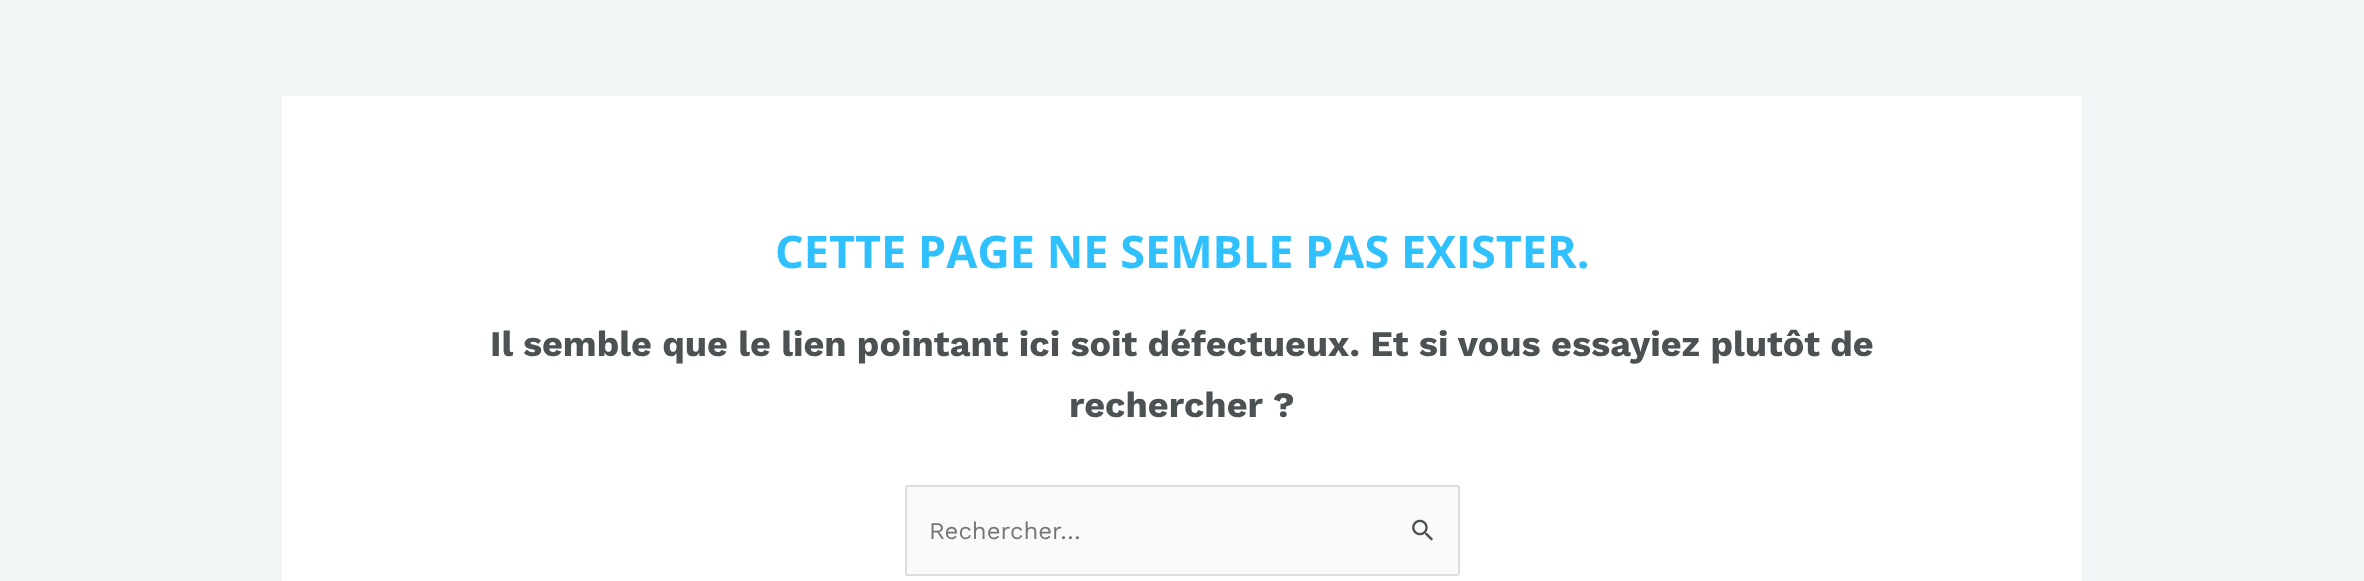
<svg xmlns="http://www.w3.org/2000/svg" xmlns:xlink="http://www.w3.org/1999/xlink" width="2364" height="581" viewBox="0 0 2364 581">
<style>
.cls-1{font:bold 45px Open Sans;fill:#2fc1ff}
.cls-2{font:bold 36px Work Sans;fill:#4c5253}
.cls-3{font:24px Work Sans;fill:#757575}
</style>
<rect width="100%" height="100%" fill="#f3f6f6"/>
<rect fill="#ffffff" x="282" y="96" width="1800" height="485"/>
<rect fill="#fafafa" stroke="#dddddd" stroke-width="2" x="906" y="486" width="553" height="89" rx="2"/>
<image xlink:href="image0.png" x="1412" y="519" width="21" height="22"/>
<text class="cls-1" x="775" y="268">CETTE PAGE NE SEMBLE PAS EXISTER.</text>
<text class="cls-2" x="490" y="356">Il semble que le lien pointant ici soit défectueux. Et si vous essayiez plutôt de</text>
<text class="cls-2" x="1069" y="417">rechercher ?</text>
<text class="cls-3" x="929" y="539">Rechercher…</text>
</svg>
